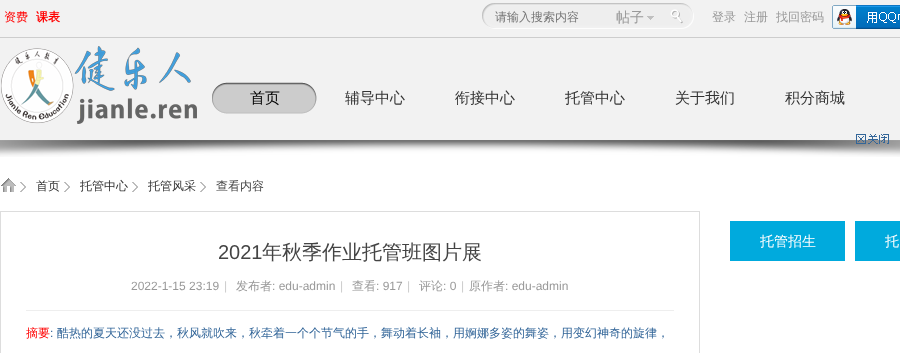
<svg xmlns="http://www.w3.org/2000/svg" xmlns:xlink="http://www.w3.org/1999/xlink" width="900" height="353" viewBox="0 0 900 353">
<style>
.cls-1{font:500 12px WenQuanYi Zen Hei;fill:#ff0000}
.cls-2{font:bold 12px WenQuanYi Zen Hei;fill:#ff0000}
.cls-3{font:500 12px WenQuanYi Zen Hei;fill:#757575}
.cls-4{font:500 14px WenQuanYi Zen Hei;fill:#999999}
.cls-5{font:500 12px WenQuanYi Zen Hei;fill:#999999}
.cls-6{font:500 15px WenQuanYi Zen Hei;fill:#000000}
.cls-7{font:500 15px WenQuanYi Zen Hei;fill:#333333}
.cls-8{font:500 12px WenQuanYi Zen Hei;fill:#333333}
.cls-9{font:500 12px WenQuanYi Zen Hei;fill:#444444}
.cls-10{font:20px Liberation Sans;fill:#444444}
.cls-11{font:500 20px WenQuanYi Zen Hei;fill:#444444}
.cls-12{font:12px Liberation Sans;fill:#999999}
.cls-13{font:12px Liberation Sans;fill:#cccccc}
.cls-14{font:12px Liberation Sans;fill:#336699}
.cls-15{font:500 12px WenQuanYi Zen Hei;fill:#336699}
.cls-16{font:500 14px WenQuanYi Zen Hei;fill:#ffffff}
</style>
<rect width="100%" height="100%" fill="#ffffff"/>
<rect fill="#f2f2f2" x="0" y="0" width="900" height="140"/>
<rect fill="#cdcdcd" x="0" y="37" width="900" height="1"/>
<image xlink:href="image0.png" x="482" y="3" width="115" height="26"/>
<image xlink:href="image1.png" x="597" y="3" width="62" height="26"/>
<image xlink:href="image2.png" x="647" y="16" width="7" height="4"/>
<image xlink:href="image3.png" x="659" y="3" width="35" height="26"/>
<image xlink:href="image4.png" x="832" y="5" width="68" height="24"/>
<image xlink:href="image5.png" x="1" y="46" width="196" height="78"/>
<image xlink:href="image6.png" x="212" y="82" width="105" height="32"/>
<image xlink:href="image8.png" x="0" y="140" width="900" height="17"/>
<image xlink:href="image7.png" x="856" y="134" width="33" height="10"/>
<image xlink:href="image9.png" x="1" y="178" width="15" height="14"/>
<image xlink:href="image10.png" x="20" y="182" width="6" height="10"/>
<image xlink:href="image10.png" x="64" y="182" width="6" height="10"/>
<image xlink:href="image10.png" x="132" y="182" width="6" height="10"/>
<image xlink:href="image10.png" x="200" y="182" width="6" height="10"/>
<rect fill="none" stroke="#dddddd" x="0.5" y="211.5" width="699" height="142"/>
<rect fill="#eeeeee" x="26" y="310" width="648" height="1"/>
<rect fill="#00aadd" x="730" y="221" width="115" height="40"/>
<rect fill="#00aadd" x="855" y="221" width="45" height="40"/>
<text class="cls-1" x="4" y="21">资费</text>
<text class="cls-2" x="36" y="21">课表</text>
<text class="cls-3" x="495" y="21">请输入搜索内容</text>
<text class="cls-4" x="616" y="22">帖子</text>
<text class="cls-5" x="712" y="21">登录</text>
<text class="cls-5" x="744" y="21">注册</text>
<text class="cls-5" x="776" y="21">找回密码</text>
<text class="cls-6" x="250" y="103">首页</text>
<text class="cls-7" x="345" y="103">辅导中心</text>
<text class="cls-7" x="455" y="103">衔接中心</text>
<text class="cls-7" x="565" y="103">托管中心</text>
<text class="cls-7" x="675" y="103">关于我们</text>
<text class="cls-7" x="785" y="103">积分商城</text>
<text class="cls-8" x="36" y="190">首页</text>
<text class="cls-8" x="80" y="190">托管中心</text>
<text class="cls-8" x="148" y="190">托管风采</text>
<text class="cls-9" x="216" y="190">查看内容</text>
<text class="cls-10" x="218" y="259">2021</text>
<text class="cls-11" x="262" y="259">年秋季作业托管班图片展</text>
<text class="cls-12" x="131" y="290">2022-1-15 23:19</text>
<text class="cls-13" x="224" y="290">|</text>
<text class="cls-5" x="236" y="290">发布者</text>
<text class="cls-12" x="272" y="290">: edu-admin</text>
<text class="cls-13" x="340" y="290">|</text>
<text class="cls-5" x="352" y="290">查看</text>
<text class="cls-12" x="376" y="290">: 917</text>
<text class="cls-13" x="407" y="290">|</text>
<text class="cls-5" x="419" y="290">评论</text>
<text class="cls-12" x="443" y="290">: 0</text>
<text class="cls-13" x="461" y="290">|</text>
<text class="cls-5" x="469" y="290">原作者</text>
<text class="cls-12" x="505" y="290">: edu-admin</text>
<text class="cls-1" x="26" y="337">摘要</text>
<text class="cls-14" x="50" y="337">:</text>
<text class="cls-15" x="57" y="337">酷热的夏天还没过去，秋风就吹来，秋牵着一个个节气的手，舞动着长袖，用婀娜多姿的舞姿，用变幻神奇的旋律，</text>
<text class="cls-16" x="760" y="246">托管招生</text>
<text class="cls-16" x="885" y="246">托</text>
</svg>
